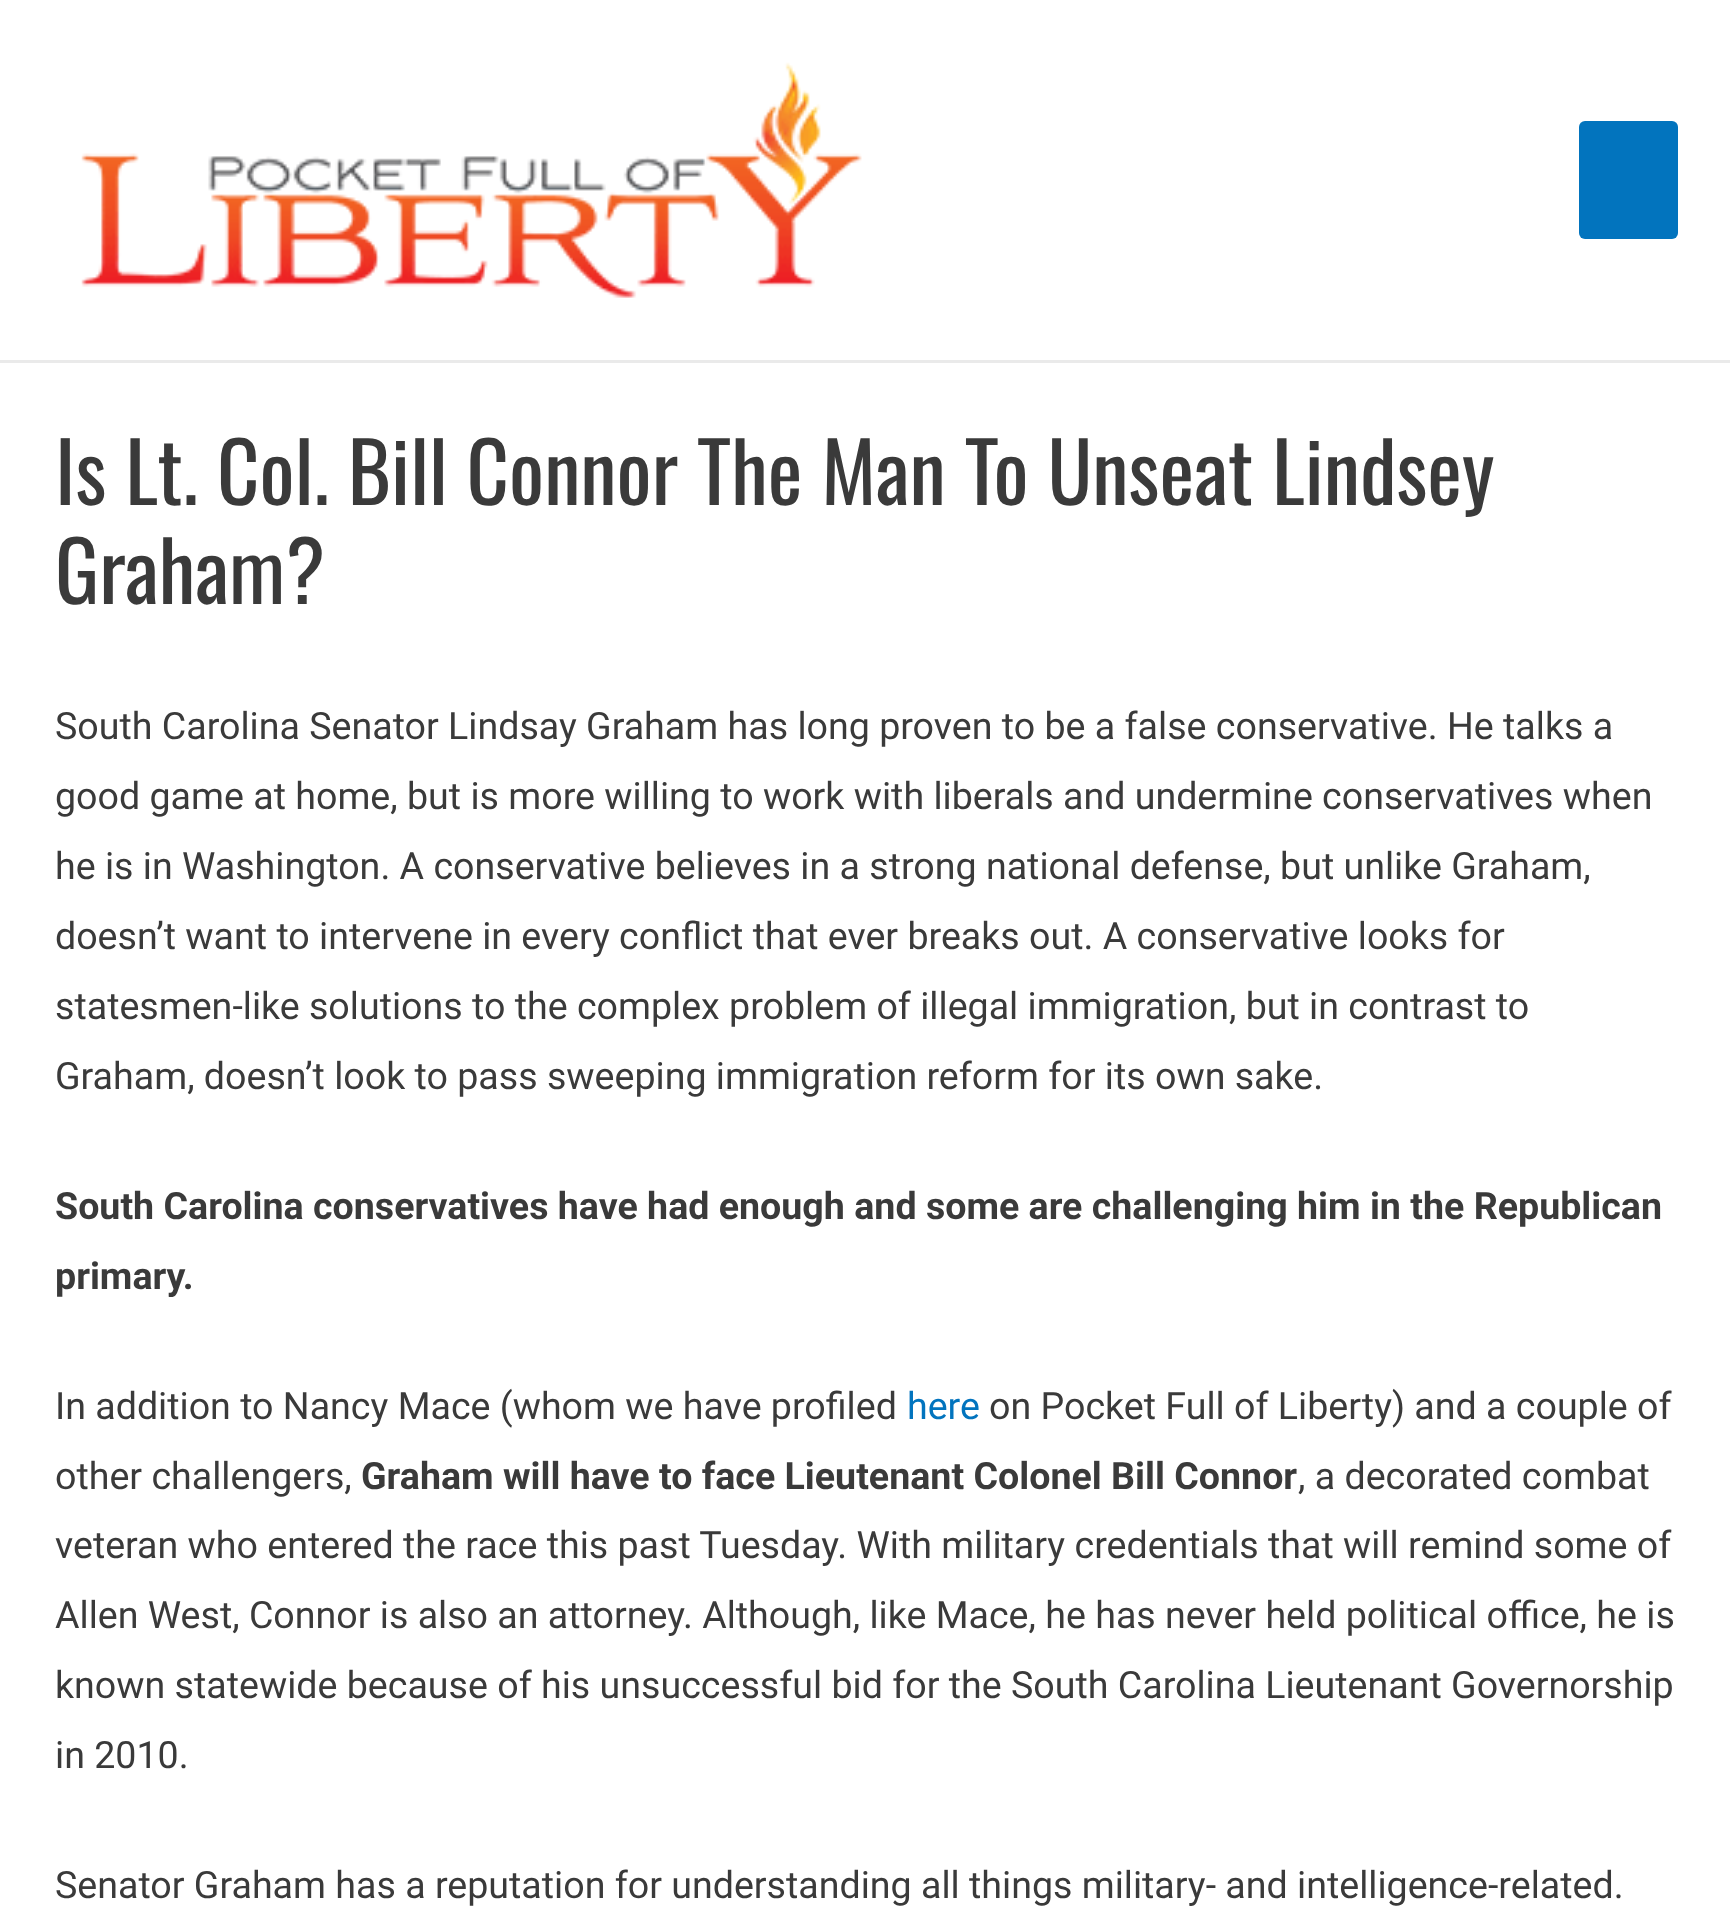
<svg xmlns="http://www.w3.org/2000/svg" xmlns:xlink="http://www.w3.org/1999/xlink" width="1730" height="1923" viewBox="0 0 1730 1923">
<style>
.cls-1{font:82.5px Oswald;fill:#3a3a3a}
.cls-2{font:37.6px Roboto;fill:#3a3a3a}
.cls-3{font:bold 37.6px Roboto;fill:#3a3a3a}
.cls-4{font:37.6px Roboto;fill:#0274be}
</style>
<rect width="100%" height="100%" fill="#ffffff"/>
<rect fill="#eaeaea" x="0" y="360" width="1730" height="3"/>
<image xlink:href="image0.png" x="81" y="62" width="781" height="236"/>
<rect fill="#0274be" x="1579" y="121" width="99" height="118" rx="6"/>
<text class="cls-1"><tspan x="55" y="505">Is Lt. Col. Bill Connor The Man To Unseat Lindsey</tspan><tspan x="55" y="604">Graham?</tspan></text>
<text class="cls-2"><tspan x="55" y="739">South Carolina Senator Lindsay Graham has long proven to be a false conservative. He talks a</tspan><tspan x="55" y="809">good game at home, but is more willing to work with liberals and undermine conservatives when</tspan><tspan x="55" y="879">he is in Washington. A conservative believes in a strong national defense, but unlike Graham,</tspan><tspan x="55" y="949">doesn’t want to intervene in every conflict that ever breaks out. A conservative looks for</tspan><tspan x="55" y="1019">statesmen-like solutions to the complex problem of illegal immigration, but in contrast to</tspan><tspan x="55" y="1089">Graham, doesn’t look to pass sweeping immigration reform for its own sake.</tspan></text>
<text class="cls-3"><tspan x="55" y="1219">South Carolina conservatives have had enough and some are challenging him in the Republican</tspan><tspan x="55" y="1289">primary.</tspan></text>
<text class="cls-2" x="55" y="1419">In addition to Nancy Mace (whom we have profiled</text>
<text class="cls-4" x="907" y="1419">here</text>
<text class="cls-2" x="989" y="1419">on Pocket Full of Liberty) and a couple of</text>
<text class="cls-2" x="55" y="1489">other challengers,</text>
<text class="cls-3" x="361" y="1489">Graham will have to face Lieutenant Colonel Bill Connor</text>
<text class="cls-2" x="1298" y="1489">, a decorated combat</text>
<text class="cls-2"><tspan x="55" y="1558">veteran who entered the race this past Tuesday. With military credentials that will remind some of</tspan><tspan x="55" y="1628">Allen West, Connor is also an attorney. Although, like Mace, he has never held political office, he is</tspan><tspan x="55" y="1698">known statewide because of his unsuccessful bid for the South Carolina Lieutenant Governorship</tspan><tspan x="55" y="1768">in 2010.</tspan></text>
<text class="cls-2" x="55" y="1898">Senator Graham has a reputation for understanding all things military- and intelligence-related.</text>
</svg>
